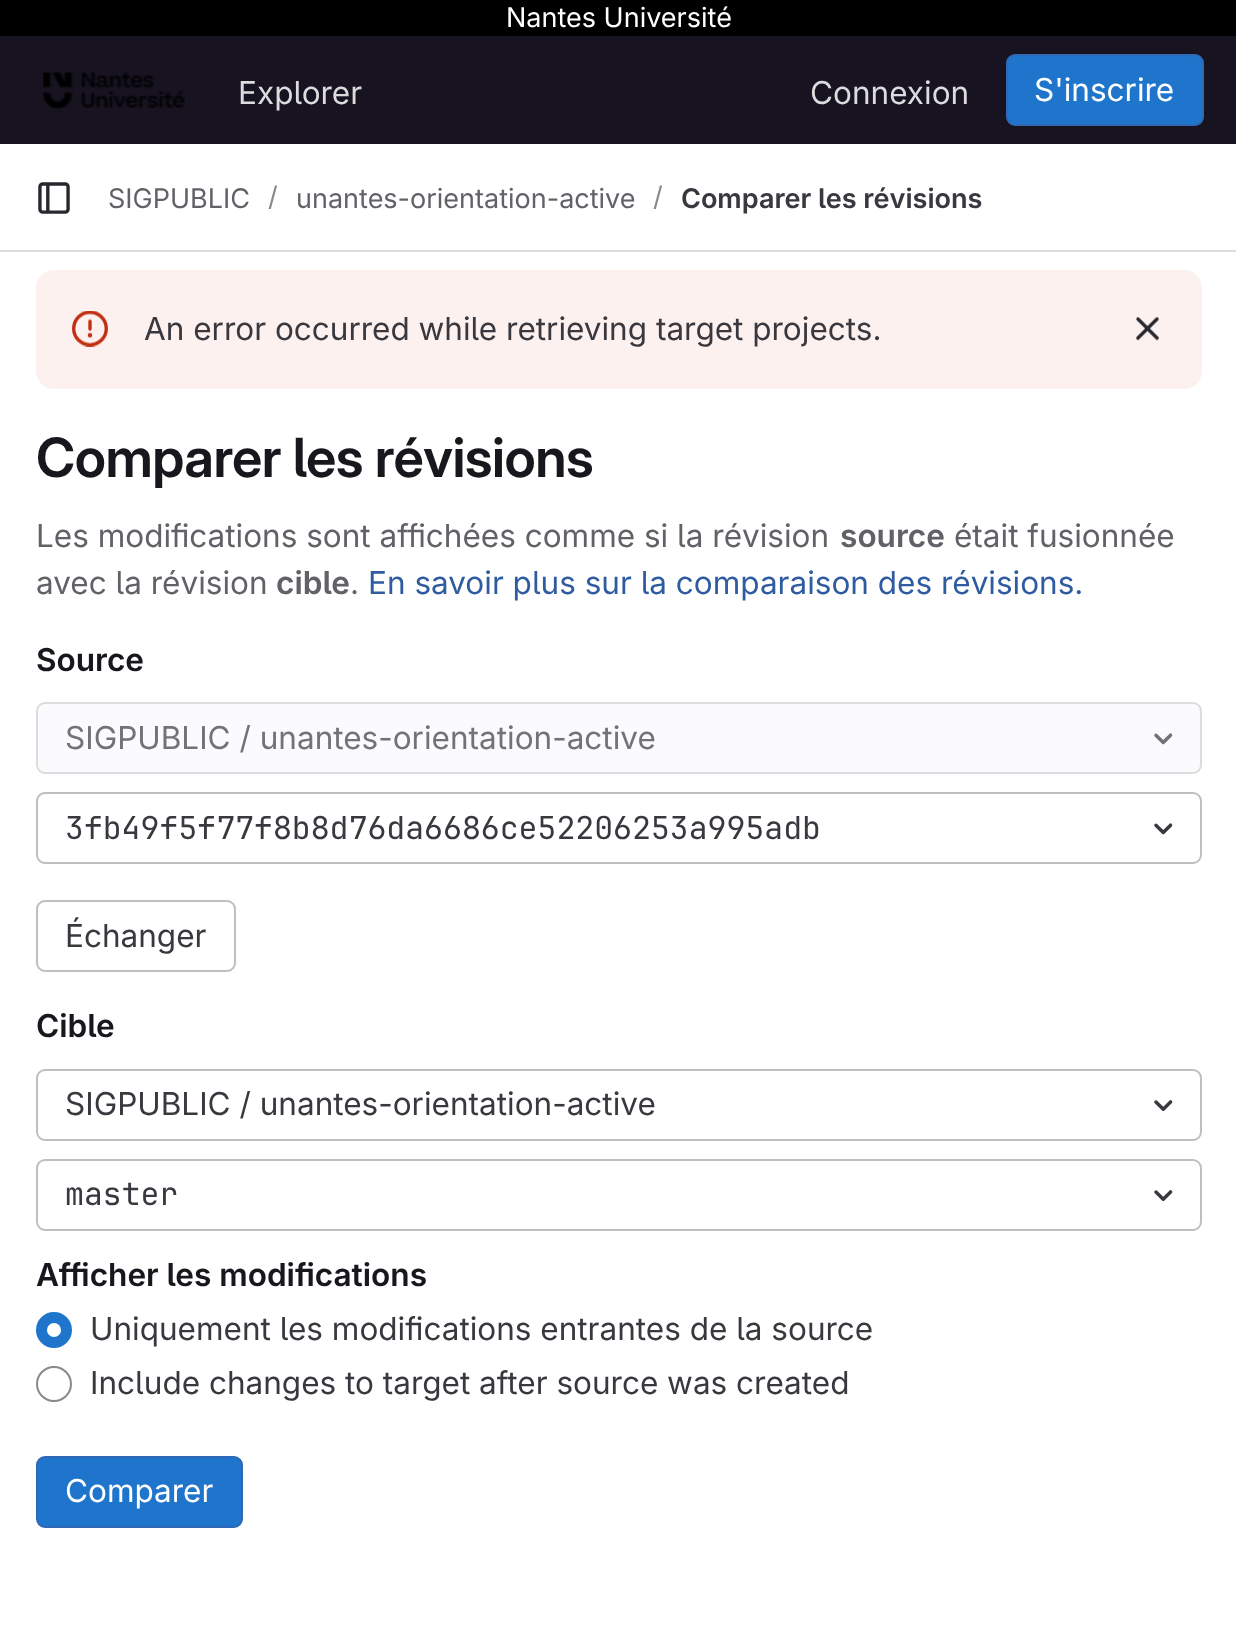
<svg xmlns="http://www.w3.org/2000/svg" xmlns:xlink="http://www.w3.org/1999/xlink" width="1236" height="1636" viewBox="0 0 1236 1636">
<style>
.cls-1{font:27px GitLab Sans;fill:#ffffff}
.cls-2{font:31.5px GitLab Sans;fill:#dcdcde}
.cls-3{font:31.5px GitLab Sans;fill:#ffffff}
.cls-4{font:27px GitLab Sans;fill:#626168}
.cls-5{font:27px GitLab Sans;fill:#89888d}
.cls-6{font:600 27px 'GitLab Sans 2';fill:#3a383f}
.cls-7{font:31.5px GitLab Sans;fill:#3a383f}
.cls-8{font:600 54px GitLab Sans;letter-spacing:-0.5px;fill:#18171d}
.cls-9{font:31.5px GitLab Sans;fill:#626168}
.cls-10{font:600 31.5px 'GitLab Sans 2';fill:#626168}
.cls-11{font:31.5px GitLab Sans;fill:#2f5ca0}
.cls-12{font:600 31.5px 'GitLab Sans 2';fill:#18171d}
.cls-13{font:31.5px GitLab Sans;fill:#737278}
.cls-14{font:31.5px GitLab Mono;fill:#3a383f}
</style>
<rect width="100%" height="100%" fill="#ffffff"/>
<rect fill="#000000" x="0" y="0" width="1236" height="36"/>
<rect fill="#171321" x="0" y="36" width="1236" height="108"/>
<image xlink:href="image0.png" x="43" y="72" width="142" height="37"/>
<rect fill="#1f75cb" stroke="#2f68b4" stroke-width="2" x="1007" y="55" width="196" height="70" rx="8"/>
<rect fill="#dcdcde" x="0" y="250" width="1236" height="2"/>
<image xlink:href="image1.png" x="38" y="182" width="32" height="32"/>
<rect fill="#fcf1ef" x="36" y="270" width="1166" height="119" rx="18"/>
<image xlink:href="image2.png" x="72" y="311" width="36" height="36"/>
<image xlink:href="image3.png" x="1136" y="316" width="23" height="25"/>
<rect fill="#fbfafd" stroke="#dcdcde" stroke-width="2" x="37" y="703" width="1164" height="70" rx="8"/>
<image xlink:href="image4.png" x="1154" y="733" width="19" height="12"/>
<rect fill="none" stroke="#bfbfc3" stroke-width="2" x="37" y="793" width="1164" height="70" rx="8"/>
<image xlink:href="image5.png" x="1154" y="823" width="19" height="12"/>
<rect fill="none" stroke="#bfbfc3" stroke-width="2" x="37" y="901" width="198" height="70" rx="8"/>
<rect fill="none" stroke="#bfbfc3" stroke-width="2" x="37" y="1070" width="1164" height="70" rx="8"/>
<image xlink:href="image6.png" x="1154" y="1100" width="19" height="11"/>
<rect fill="none" stroke="#bfbfc3" stroke-width="2" x="37" y="1160" width="1164" height="70" rx="8"/>
<image xlink:href="image6.png" x="1154" y="1190" width="19" height="11"/>
<circle fill="#1f75cb" stroke="#1f75cb" stroke-width="2" cx="54" cy="1330" r="17"/>
<circle fill="#ffffff" cx="54" cy="1330" r="7"/>
<circle fill="none" stroke="#89888d" stroke-width="2" cx="54" cy="1384" r="17"/>
<rect fill="#1f75cb" stroke="#2f68b4" stroke-width="2" x="37" y="1457" width="205" height="70" rx="8"/>
<text class="cls-1" x="506" y="27">Nantes Université</text>
<text class="cls-2" x="238" y="104">Explorer</text>
<text class="cls-2" x="810" y="104">Connexion</text>
<text class="cls-3" x="1034" y="101">S'inscrire</text>
<text class="cls-4" x="108" y="208">SIGPUBLIC</text>
<text class="cls-5" x="268" y="206">/</text>
<text class="cls-4" x="296" y="208">unantes-orientation-active</text>
<text class="cls-5" x="653" y="206">/</text>
<text class="cls-6" x="681" y="208">Comparer les révisions</text>
<text class="cls-7" x="144" y="340">An error occurred while retrieving target projects.</text>
<text class="cls-8" x="36" y="477">Comparer les révisions</text>
<text class="cls-9" x="36" y="547">Les modifications sont affichées comme si la révision</text>
<text class="cls-10" x="840" y="547">source</text>
<text class="cls-9" x="954" y="547">était fusionnée</text>
<text class="cls-9" x="36" y="594">avec la révision</text>
<text class="cls-10" x="276" y="594">cible</text>
<text class="cls-9" x="350" y="594">.</text>
<text class="cls-11" x="368" y="594">En savoir plus sur la comparaison des révisions.</text>
<text class="cls-12" x="36" y="671">Source</text>
<text class="cls-13" x="65" y="749">SIGPUBLIC / unantes-orientation-active</text>
<text class="cls-14" x="65" y="839">3fb49f5f77f8b8d76da6686ce52206253a995adb</text>
<text class="cls-7" x="65" y="947">Échanger</text>
<text class="cls-12" x="36" y="1037">Cible</text>
<text class="cls-7" x="65" y="1115">SIGPUBLIC / unantes-orientation-active</text>
<text class="cls-14" x="65" y="1205">master</text>
<text class="cls-12" x="36" y="1286">Afficher les modifications</text>
<text class="cls-7"><tspan x="90" y="1340">Uniquement les modifications entrantes de la source</tspan><tspan x="90" y="1394">Include changes to target after source was created</tspan></text>
<text class="cls-3" x="65" y="1502">Comparer</text>
</svg>
